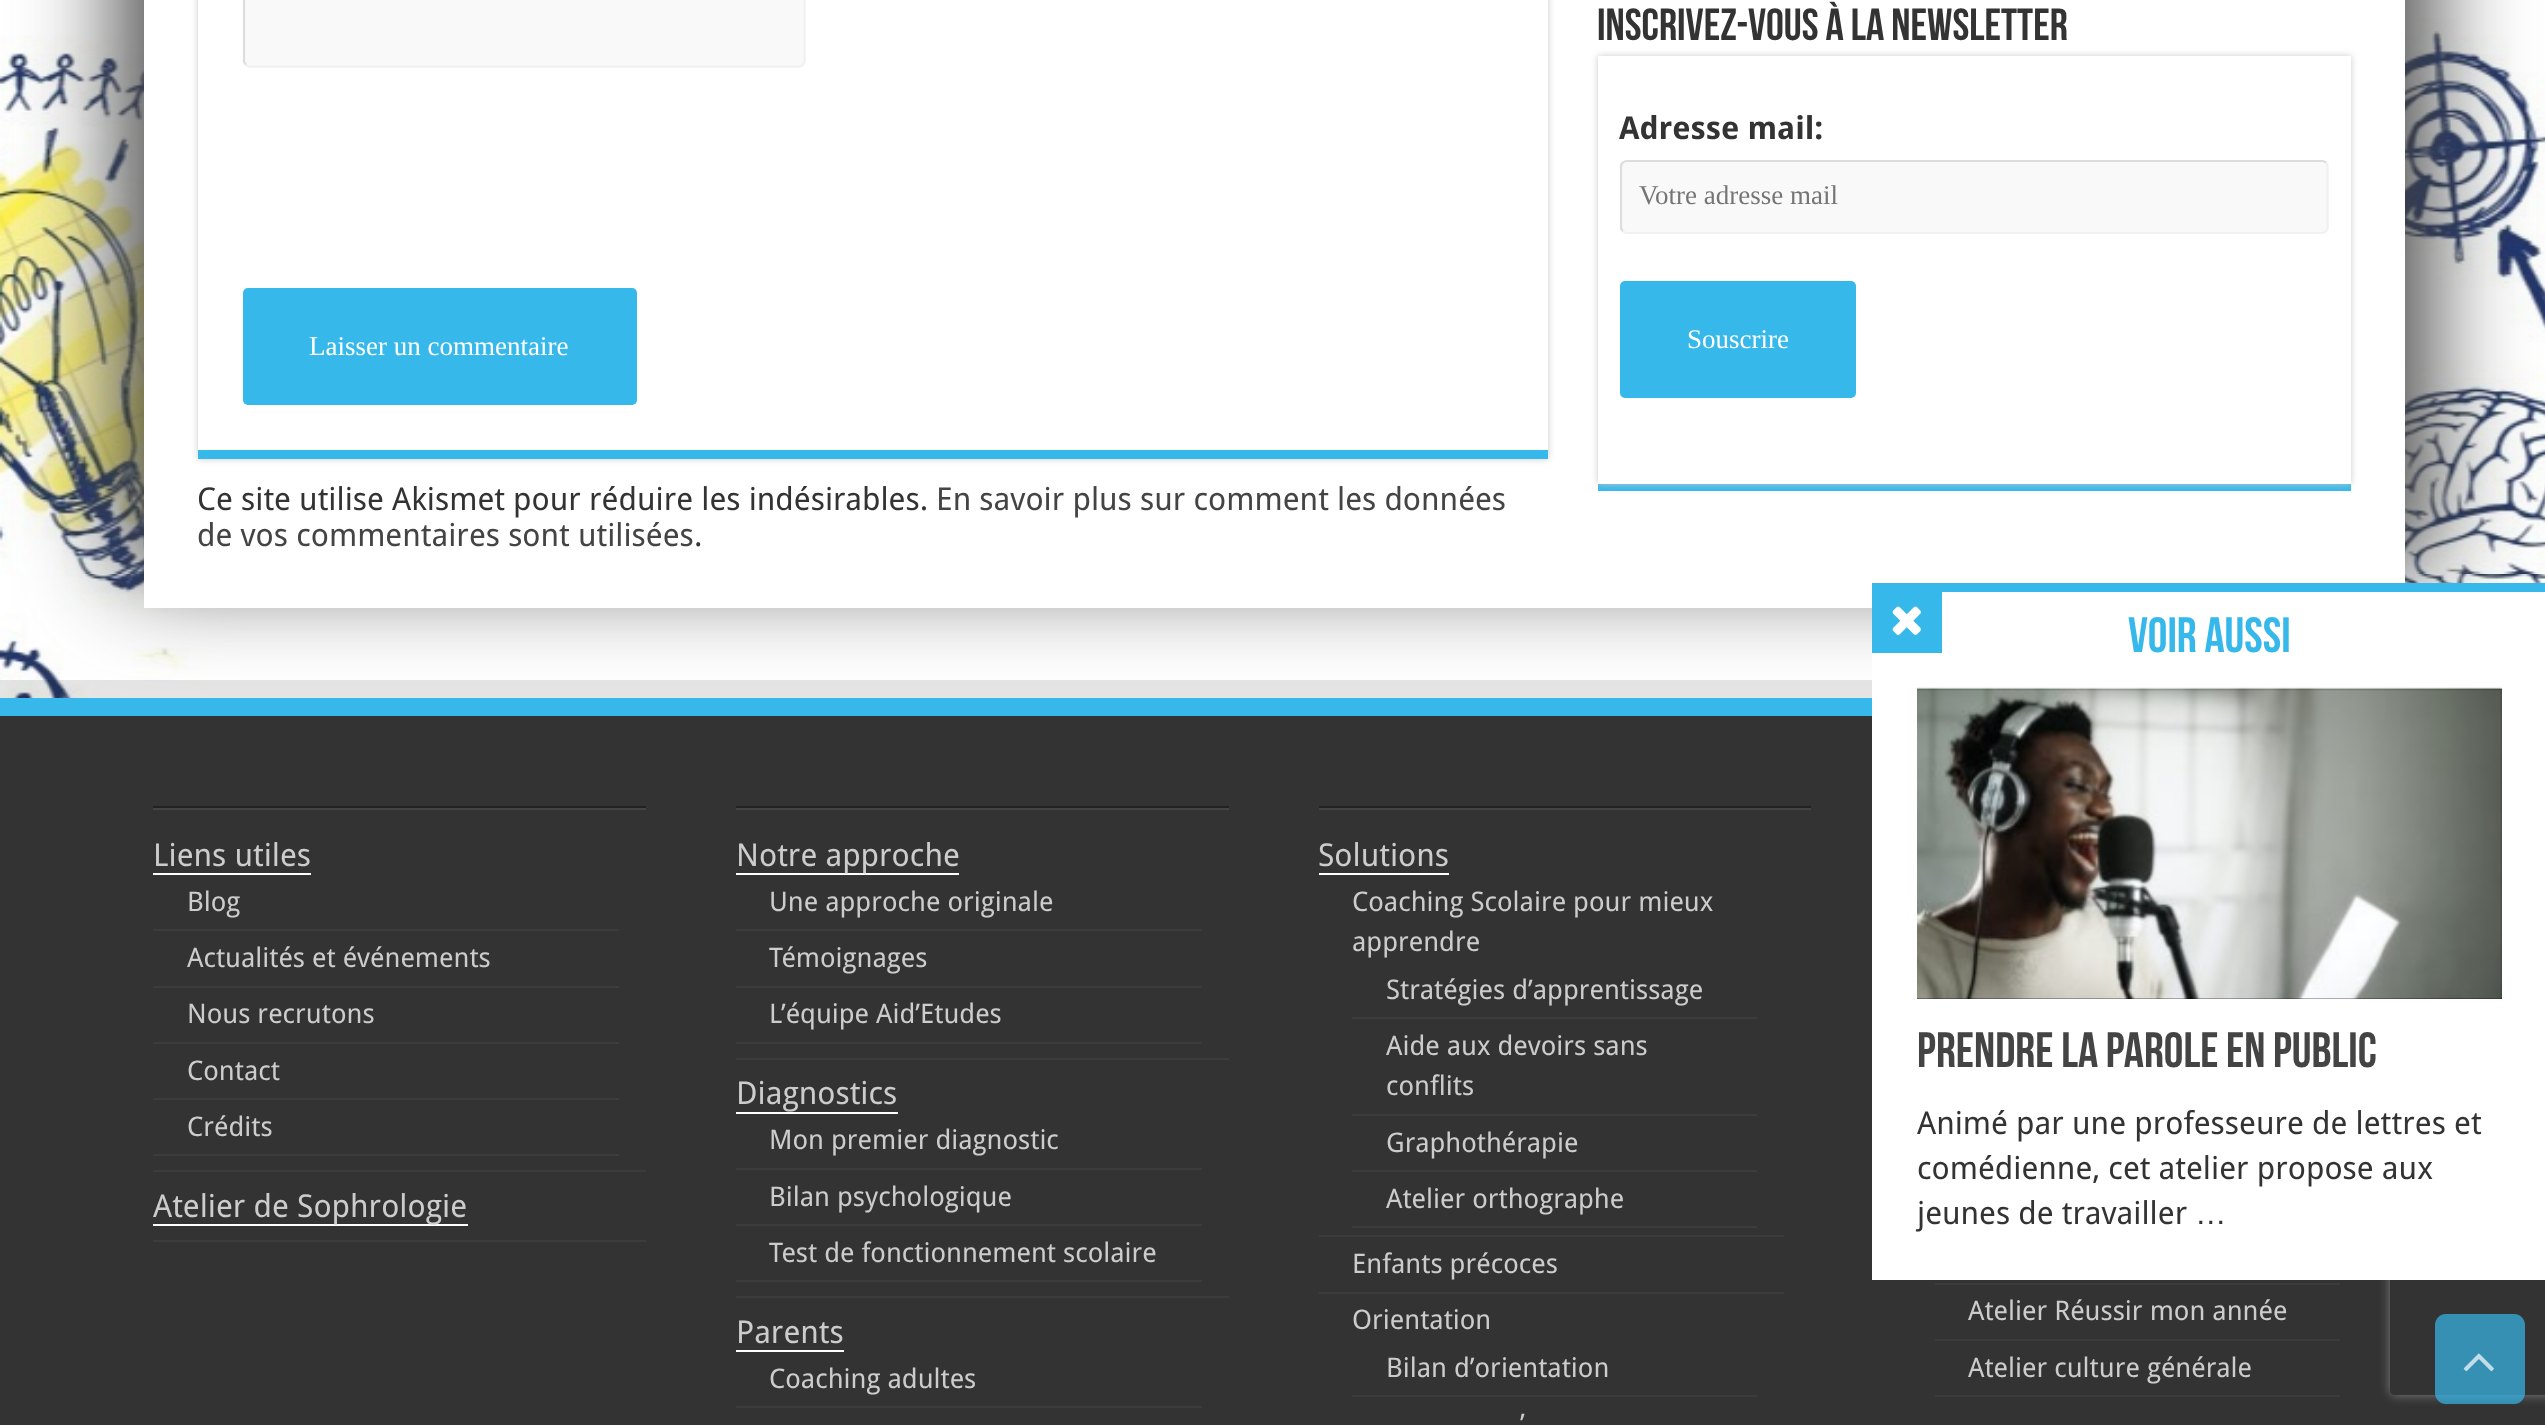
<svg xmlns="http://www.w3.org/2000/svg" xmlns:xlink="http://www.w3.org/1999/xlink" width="2545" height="1425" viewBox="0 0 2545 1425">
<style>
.cls-1{font:bold 45px Bebas Neue;fill:#333333}
.cls-2{font:bold 31.5px Droid Sans;fill:#333333}
.cls-3{font:27px Liberation Serif;fill:#757575}
.cls-4{font:27px Liberation Serif;fill:#ffffff}
.cls-5{font:31.5px Droid Sans;fill:#333333}
.cls-6{font:31.5px Droid Sans;fill:#444444}
.cls-7{font:bold 49.5px Bebas Neue;fill:#37b8eb}
.cls-8{font:bold 49.5px Bebas Neue;fill:#444444}
.cls-9{font:31.5px Liberation Sans;fill:#333333}
.cls-10{font:31.5px Droid Sans;fill:#cccccc}
.cls-11{font:27px Droid Sans;fill:#cccccc}
</style>
<defs>
<clipPath id="clip1"><path d="M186 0H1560V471H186ZM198-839H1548V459H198Z" clip-rule="evenodd"/></clipPath>
<clipPath id="clip2"><path d="M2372 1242H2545V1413H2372ZM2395 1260H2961C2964 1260 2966 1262 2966 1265V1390C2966 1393 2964 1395 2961 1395H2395C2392 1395 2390 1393 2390 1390V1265C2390 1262 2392 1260 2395 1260Z" clip-rule="evenodd"/></clipPath>
</defs>
<rect width="100%" height="100%" fill="#ffffff"/>
<image xlink:href="image2.png" x="0" y="18" width="2545" height="680"/>
<rect fill="#404040" filter="blur(50.5px)" x="122" y="-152" width="2306" height="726"/>
<rect fill="#ffffff" x="144" y="0" width="2261" height="608"/>
<rect fill="#37b8eb" x="1598" y="484" width="753" height="7"/>
<rect fill="#cacaca" filter="blur(3.5px)" x="1598" y="56" width="753" height="428"/>
<rect fill="#ffffff" x="1598" y="56" width="753" height="428"/>
<rect fill="#f9f9f9" x="1620" y="160" width="709" height="74" rx="7"/>
<path fill="none" stroke="#f1f1f1" stroke-width="2.2" d="M2326 162.5C2327 163.5 2327.5 165 2327.5 166.5V227C2327.5 228.5 2327 230 2326 231C2325 232.5 2323.5 233 2322 233H1627C1625.5 233 1624 232.5 1623 231"/>
<path fill="none" stroke="#dddddd" stroke-width="2.2" d="M1623 231C1621.5 230 1621 228.5 1621 227V166.5C1621 165 1621.5 163.5 1623 162.5C1624 161.5 1625.5 161 1627 161H2322C2323.5 161 2325 161.5 2326 162.5"/>
<rect fill="#37b8eb" x="1620" y="281" width="236" height="117" rx="5"/>
<g clip-path="url(#clip1)">
<rect fill="#cacaca" filter="blur(3.5px)" x="198" y="-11" width="1350" height="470"/>
</g>
<rect fill="#37b8eb" x="198" y="450" width="1350" height="9"/>
<rect fill="#f9f9f9" x="243" y="-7" width="563" height="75" rx="7"/>
<path fill="none" stroke="#f1f1f1" stroke-width="2.2" d="M802.5-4C804-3 804.5-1.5 804.5 0V61C804.5 62 804 63.5 802.5 64.5C801.5 66 800 66.5 799 66.5H250C248.5 66.5 247 66 246 64.5"/>
<path fill="none" stroke="#dddddd" stroke-width="2.2" d="M246 64.5C244.5 63.5 244 62 244 61V0C244-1.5 244.5-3 246-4C247-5 248.5-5.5 250-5.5H799C800-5.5 801.5-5 802.5-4"/>
<rect fill="#37b8eb" x="243" y="288" width="394" height="117" rx="5"/>
<rect fill="#333333" x="0" y="716" width="2545" height="709"/>
<g clip-path="url(#clip2)">
<rect fill="#808080" filter="blur(5.5px)" x="2390" y="1260" width="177" height="135" rx="5"/>
</g>
<rect fill="#ffffff" x="1872" y="592" width="673" height="688"/>
<rect fill="#37b8eb" x="1872" y="583" width="673" height="9"/>
<rect fill="#37b8eb" x="1872" y="592" width="70" height="61"/>
<image xlink:href="image0.png" x="1892" y="606" width="29" height="29"/>
<rect fill="#000000" x="1917" y="689" width="585" height="310"/>
<image xlink:href="image1.png" x="1917" y="687" width="585" height="312"/>
<rect fill="#000000" fill-opacity="0.1" x="0" y="680" width="1872" height="18"/>
<rect fill="#37b8eb" x="0" y="698" width="1872" height="18"/>
<rect fill="#222222" x="153" y="806" width="493" height="2"/>
<rect fill="#444444" x="153" y="808" width="493" height="2"/>
<rect fill="#3c3c3c" x="153" y="1170" width="493" height="2"/>
<rect fill="#ffffff" x="153" y="873" width="158" height="2"/>
<rect fill="#3c3c3c" x="153" y="929" width="466" height="2"/>
<rect fill="#3c3c3c" x="153" y="986" width="466" height="2"/>
<rect fill="#3c3c3c" x="153" y="1042" width="466" height="2"/>
<rect fill="#3c3c3c" x="153" y="1098" width="466" height="2"/>
<rect fill="#3c3c3c" x="153" y="1154" width="466" height="2"/>
<rect fill="#3c3c3c" x="153" y="1240" width="493" height="2"/>
<rect fill="#ffffff" x="153" y="1224" width="315" height="2"/>
<rect fill="#222222" x="736" y="806" width="493" height="2"/>
<rect fill="#444444" x="736" y="808" width="493" height="2"/>
<rect fill="#3c3c3c" x="736" y="1058" width="493" height="2"/>
<rect fill="#ffffff" x="736" y="873" width="223" height="2"/>
<rect fill="#3c3c3c" x="736" y="929" width="466" height="2"/>
<rect fill="#3c3c3c" x="736" y="986" width="466" height="2"/>
<rect fill="#3c3c3c" x="736" y="1042" width="466" height="2"/>
<rect fill="#3c3c3c" x="736" y="1296" width="493" height="2"/>
<rect fill="#ffffff" x="736" y="1112" width="162" height="2"/>
<rect fill="#3c3c3c" x="736" y="1168" width="466" height="2"/>
<rect fill="#3c3c3c" x="736" y="1224" width="466" height="2"/>
<rect fill="#3c3c3c" x="736" y="1280" width="466" height="2"/>
<rect fill="#ffffff" x="736" y="1350" width="108" height="2"/>
<rect fill="#3c3c3c" x="736" y="1406" width="466" height="2"/>
<rect fill="#222222" x="1319" y="806" width="492" height="2"/>
<rect fill="#444444" x="1319" y="808" width="492" height="2"/>
<rect fill="#ffffff" x="1319" y="873" width="130" height="2"/>
<rect fill="#3c3c3c" x="1319" y="1235" width="465" height="2"/>
<rect fill="#3c3c3c" x="1352" y="1017" width="405" height="2"/>
<rect fill="#3c3c3c" x="1352" y="1114" width="405" height="2"/>
<rect fill="#3c3c3c" x="1352" y="1170" width="405" height="2"/>
<rect fill="#3c3c3c" x="1352" y="1226" width="405" height="2"/>
<rect fill="#3c3c3c" x="1319" y="1292" width="465" height="2"/>
<rect fill="#3c3c3c" x="1352" y="1395" width="405" height="2"/>
<rect fill="#3c3c3c" x="1935" y="1283" width="405" height="2"/>
<rect fill="#3c3c3c" x="1935" y="1339" width="405" height="2"/>
<rect fill="#3c3c3c" x="1935" y="1395" width="405" height="2"/>
<rect fill="#37b8eb" fill-opacity="0.7" x="2435" y="1314" width="90" height="90" rx="11"/>
<image xlink:href="image3.png" x="2463" y="1353" width="31" height="19"/>
<text class="cls-1" x="1597" y="40">inscrivez-vous à la newsletter</text>
<text class="cls-2" x="1619" y="139">Adresse mail:</text>
<text class="cls-3" x="1639" y="204">Votre adresse mail</text>
<text class="cls-4" x="1687" y="348">Souscrire</text>
<text class="cls-4" x="309" y="355">Laisser un commentaire</text>
<text class="cls-5" x="197" y="510">Ce site utilise Akismet pour réduire les indésirables.</text>
<text class="cls-6" x="936" y="510">En savoir plus sur comment les données</text>
<text class="cls-6" x="197" y="546">de vos commentaires sont utilisées</text>
<text class="cls-5" x="694" y="546">.</text>
<text class="cls-7" x="2128" y="652">Voir aussi</text>
<text class="cls-8" x="1917" y="1067">Prendre la parole en public</text>
<text class="cls-5"><tspan x="1917" y="1134">Animé par une professeure de lettres et</tspan><tspan x="1917" y="1179">comédienne, cet atelier propose aux</tspan><tspan x="1917" y="1224">jeunes de travailler</tspan></text>
<text class="cls-9" x="2195" y="1224">…</text>
<text class="cls-10" x="153" y="866">Liens utiles</text>
<text class="cls-11" x="187" y="911">Blog</text>
<text class="cls-11" x="187" y="967">Actualités et événements</text>
<text class="cls-11" x="187" y="1023">Nous recrutons</text>
<text class="cls-11" x="187" y="1080">Contact</text>
<text class="cls-11" x="187" y="1136">Crédits</text>
<text class="cls-10" x="153" y="1217">Atelier de Sophrologie</text>
<text class="cls-10" x="736" y="866">Notre approche</text>
<text class="cls-11" x="769" y="911">Une approche originale</text>
<text class="cls-11" x="769" y="967">Témoignages</text>
<text class="cls-11" x="769" y="1023">L’équipe Aid’Etudes</text>
<text class="cls-10" x="736" y="1104">Diagnostics</text>
<text class="cls-11" x="769" y="1149">Mon premier diagnostic</text>
<text class="cls-11" x="769" y="1206">Bilan psychologique</text>
<text class="cls-11" x="769" y="1262">Test de fonctionnement scolaire</text>
<text class="cls-10" x="736" y="1343">Parents</text>
<text class="cls-11" x="769" y="1388">Coaching adultes</text>
<text class="cls-10" x="1318" y="866">Solutions</text>
<text class="cls-11"><tspan x="1352" y="911">Coaching Scolaire pour mieux</tspan><tspan x="1352" y="951">apprendre</tspan></text>
<text class="cls-11" x="1386" y="999">Stratégies d’apprentissage</text>
<text class="cls-11"><tspan x="1386" y="1055">Aide aux devoirs sans</tspan><tspan x="1386" y="1095">conflits</tspan></text>
<text class="cls-11" x="1386" y="1152">Graphothérapie</text>
<text class="cls-11" x="1386" y="1208">Atelier orthographe</text>
<text class="cls-11" x="1352" y="1273">Enfants précoces</text>
<text class="cls-11" x="1352" y="1329">Orientation</text>
<text class="cls-11" x="1386" y="1377">Bilan d’orientation</text>
<text class="cls-11" x="1520" y="1433">’</text>
<text class="cls-11" x="1968" y="1320">Atelier Réussir mon année</text>
<text class="cls-11" x="1968" y="1377">Atelier culture générale</text>
</svg>
